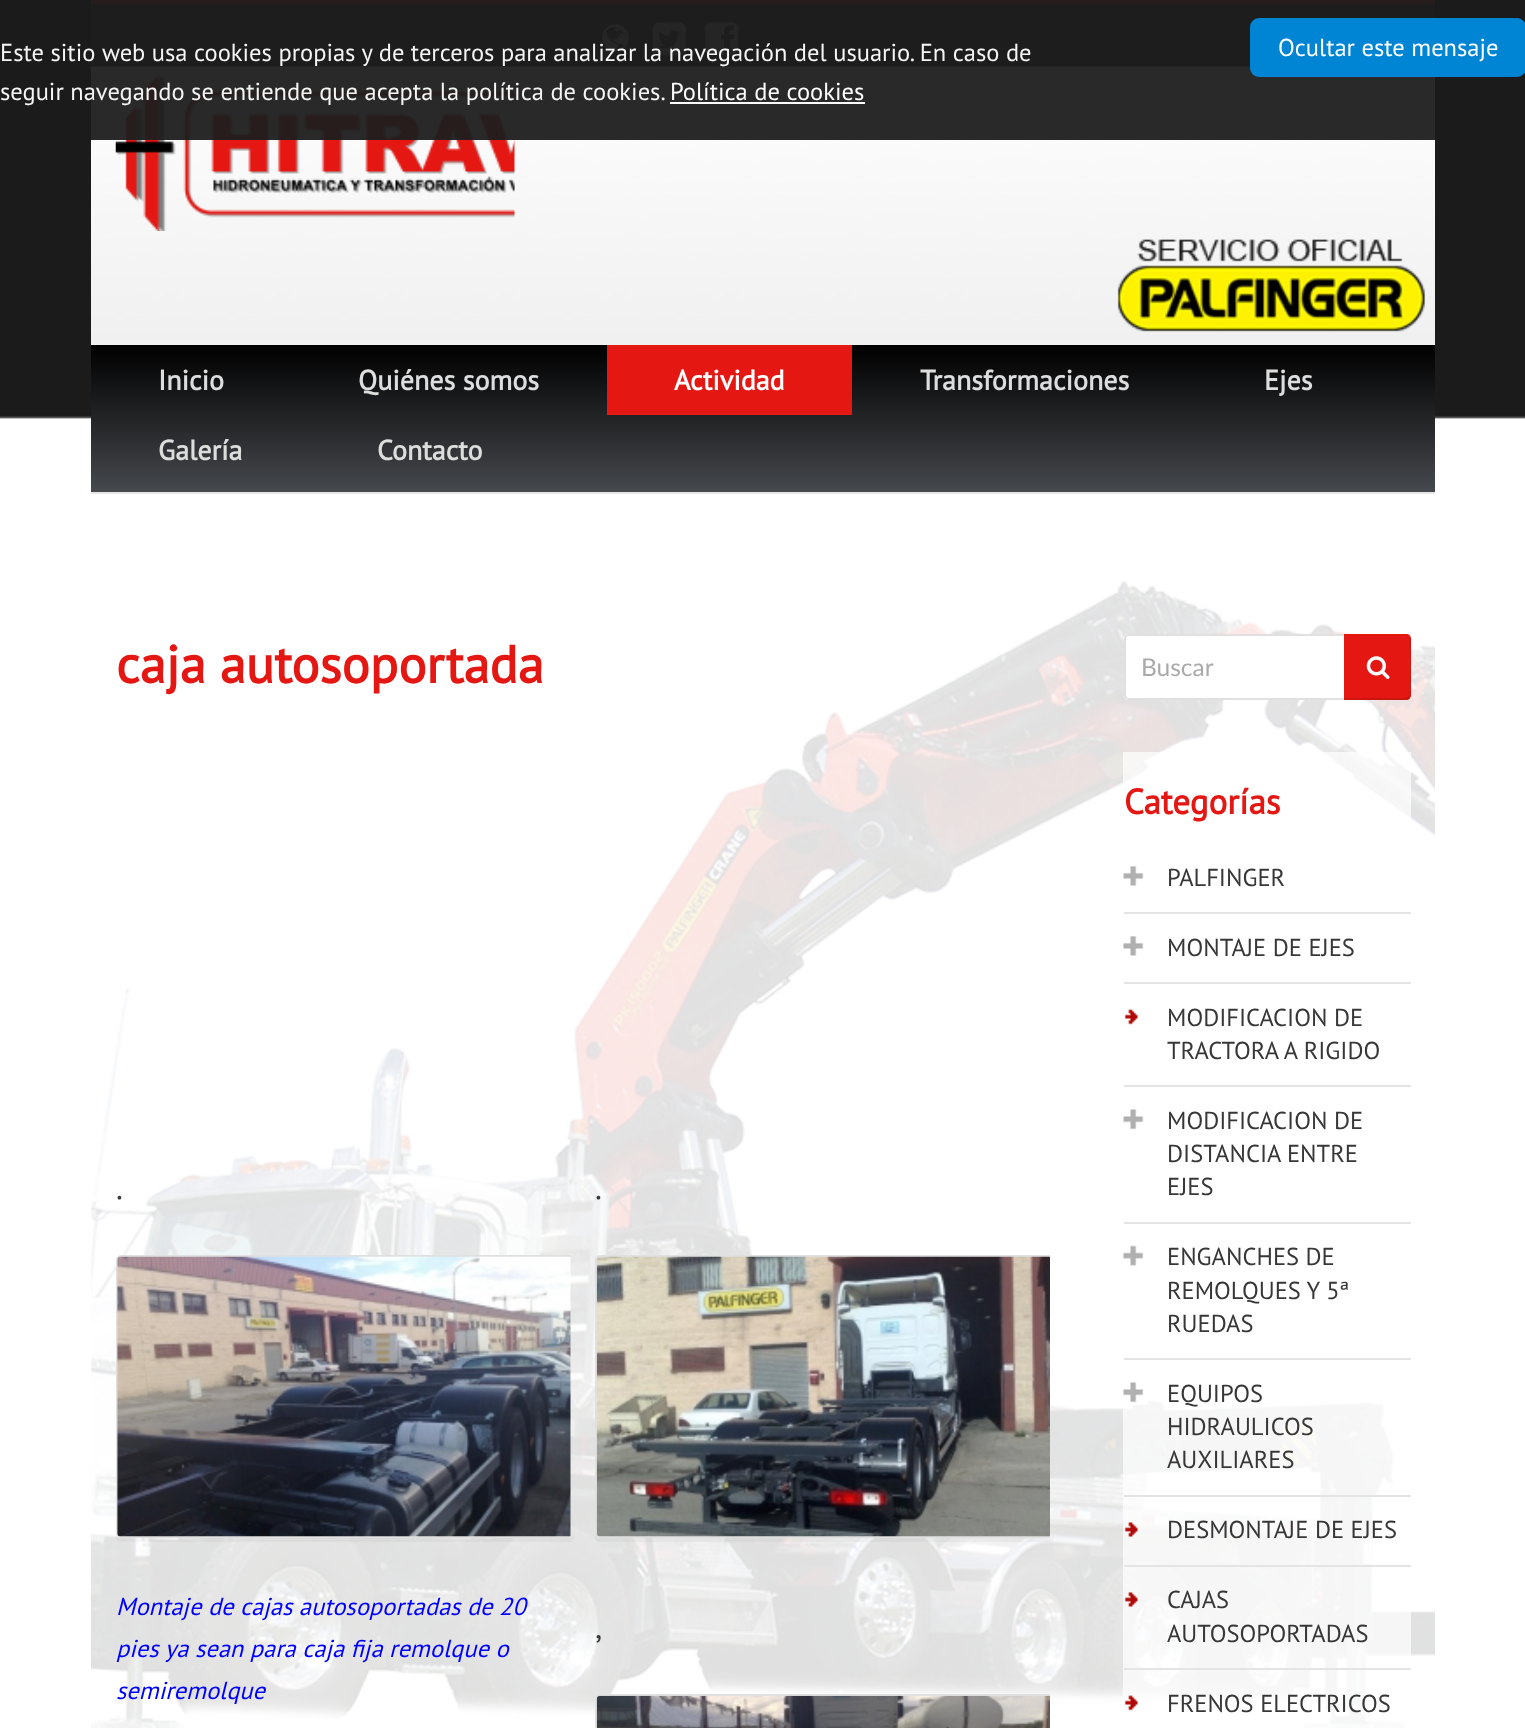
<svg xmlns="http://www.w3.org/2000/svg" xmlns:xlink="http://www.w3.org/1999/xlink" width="1525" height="1728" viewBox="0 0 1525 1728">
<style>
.cls-1{font:24.5px PT Sans;fill:#f5f5f5}
.cls-2{font:24.5px PT Sans;fill:#ffffff}
.cls-3{font:bold 28px PT Sans;fill:#dddddd}
.cls-4{font:bold 28px PT Sans;fill:#ffffff}
.cls-5{font:bold 52.5px PT Sans;fill:#e41713}
.cls-6{font:32px PT Sans;fill:#373737}
.cls-7{font:italic 24.5px PT Sans;fill:#0000ff}
.cls-8{font:24.5px Lato;fill:#aaaaaa}
.cls-9{font:bold 35px PT Sans;fill:#e41713}
.cls-10{font:24.5px PT Sans;fill:#373737}
</style>
<defs>
<linearGradient id="g1" gradientUnits="userSpaceOnUse" x1="763" y1="345" x2="763" y2="492"><stop offset="0" stop-color="#000000"/><stop offset="1" stop-color="#45484d"/></linearGradient>
<clipPath id="clip1"><rect x="116" y="1164" width="455" height="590"/></clipPath>
<clipPath id="clip2"><rect x="595" y="1164" width="455" height="422"/></clipPath>
<clipPath id="clip3"><rect x="595" y="1603" width="455" height="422"/></clipPath>
<clipPath id="clip4"><rect x="1124" y="634" width="287" height="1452"/></clipPath>
</defs>
<rect width="100%" height="100%" fill="#ffffff"/>
<image xlink:href="image0.png" x="0" y="0" width="1525" height="419"/>
<rect fill="#e41713" x="91" y="0" width="1344" height="4"/>
<image xlink:href="image1.png" x="602" y="24" width="27" height="28"/>
<image xlink:href="image2.png" x="652" y="22" width="34" height="34"/>
<image xlink:href="image3.png" x="705" y="22" width="34" height="34"/>
<image xlink:href="image4.png" x="91" y="66" width="1344" height="266"/>
<image xlink:href="image5.png" x="115" y="75" width="400" height="156"/>
<rect fill="#1d1d1d" fill-opacity="0.95" x="91" y="0" width="1344" height="140"/>
<rect fill="#ffffff" x="670" y="102" width="195" height="2"/>
<rect fill="#0084d4" x="1250" y="18" width="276" height="59" rx="9"/>
<rect fill="#f0f0f0" x="91" y="332" width="1344" height="13"/>
<rect fill="url(#g1)" x="91" y="345" width="1344" height="147"/>
<rect fill="#e6e6e6" x="91" y="492" width="1344" height="2"/>
<rect fill="#e41713" x="607" y="345" width="245" height="70"/>
<image xlink:href="image6.png" x="91" y="581" width="1344" height="1147"/>
<path fill="#000000" fill-opacity="0.03" d="M116 1535V1537C116 1540 118 1542 121 1542H569C572 1542 574 1540 574 1537V1533C574 1536 572 1538 569 1538H121C119 1538 117 1537 116 1535Z"/>
<g clip-path="url(#clip1)">
<rect fill="none" stroke="#e0e0e0" stroke-width="2" x="117" y="1256" width="456" height="281" rx="4"/>
</g>
<image xlink:href="image7.png" x="117" y="1256" width="454" height="281"/>
<path fill="#000000" fill-opacity="0.03" d="M595 1533V1537C595 1540 597 1542 600 1542H1049C1052 1542 1054 1540 1054 1537V1263V1261V1533C1054 1536 1051 1538 1048 1538H600C597 1538 595 1536 595 1533Z"/>
<g clip-path="url(#clip2)">
<rect fill="none" stroke="#e0e0e0" stroke-width="2" x="596" y="1256" width="457" height="281" rx="4"/>
</g>
<image xlink:href="image8.png" x="596" y="1256" width="454" height="281"/>
<g clip-path="url(#clip3)">
<rect fill="none" stroke="#e0e0e0" stroke-width="2" x="596" y="1695" width="457" height="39" rx="4"/>
</g>
<image xlink:href="image9.png" x="596" y="1695" width="454" height="33"/>
<path fill="#ffffff" d="M1129 634H1411V700H1129C1126 700 1124 698 1124 695V639C1124 636 1126 634 1129 634Z"/>
<g clip-path="url(#clip4)">
<rect fill="none" stroke="#e0e0e0" stroke-width="2" x="1125" y="635" width="306" height="64" rx="4"/>
</g>
<path fill="#e41713" d="M1344 634H1406C1409 634 1411 636 1411 639V695C1411 698 1409 700 1406 700H1344Z"/>
<path fill="#000000" fill-opacity="0.1" d="M1344 698V700H1406C1409 700 1411 698 1411 695V639C1411 638 1411 637 1410 636V693C1410 700 1399 698 1395 698Z"/>
<image xlink:href="image10.png" x="1366" y="656" width="24" height="23"/>
<rect fill="#ffffff" fill-opacity="0.7" x="1123" y="752" width="288" height="976"/>
<image xlink:href="image11.png" x="1123" y="866" width="21" height="20"/>
<rect fill="#e4e4e4" x="1124" y="912" width="287" height="2"/>
<image xlink:href="image11.png" x="1123" y="936" width="21" height="20"/>
<rect fill="#e4e4e4" x="1124" y="982" width="287" height="2"/>
<image xlink:href="image12.png" x="1124" y="1009" width="14" height="16"/>
<rect fill="#e4e4e4" x="1124" y="1085" width="287" height="2"/>
<image xlink:href="image13.png" x="1123" y="1109" width="21" height="21"/>
<rect fill="#e4e4e4" x="1124" y="1222" width="287" height="2"/>
<image xlink:href="image14.png" x="1123" y="1245" width="21" height="21"/>
<rect fill="#e4e4e4" x="1124" y="1358" width="287" height="2"/>
<rect fill="#ffffff" x="1132" y="1398" width="16" height="7"/>
<image xlink:href="image13.png" x="1123" y="1382" width="21" height="21"/>
<rect fill="#e4e4e4" x="1124" y="1495" width="287" height="2"/>
<image xlink:href="image15.png" x="1124" y="1522" width="14" height="15"/>
<rect fill="#e4e4e4" x="1124" y="1565" width="287" height="2"/>
<image xlink:href="image16.png" x="1124" y="1592" width="14" height="15"/>
<rect fill="#e4e4e4" x="1124" y="1668" width="287" height="2"/>
<image xlink:href="image17.png" x="1124" y="1695" width="14" height="16"/>
<text class="cls-1"><tspan x="0" y="61">Este sitio web usa cookies propias y de terceros para analizar la navegación del usuario. En caso de</tspan><tspan x="0" y="100">seguir navegando se entiende que acepta la política de cookies.</tspan></text>
<text class="cls-2" x="670" y="100">Política de cookies</text>
<text class="cls-2" x="1278" y="56">Ocultar este mensaje</text>
<text class="cls-3" x="158" y="390">Inicio</text>
<text class="cls-3" x="358" y="390">Quiénes somos</text>
<text class="cls-4" x="674" y="390">Actividad</text>
<text class="cls-3" x="920" y="390">Transformaciones</text>
<text class="cls-3" x="1264" y="390">Ejes</text>
<text class="cls-3" x="158" y="460">Galería</text>
<text class="cls-3" x="377" y="460">Contacto</text>
<text class="cls-5" x="116" y="683">caja autosoportada</text>
<text class="cls-6" x="116" y="1199">.</text>
<text class="cls-7"><tspan x="116" y="1615">Montaje de cajas autosoportadas de 20</tspan><tspan x="116" y="1657">pies ya sean para caja fija remolque o</tspan><tspan x="116" y="1699">semiremolque</tspan></text>
<text class="cls-6" x="595" y="1199">.</text>
<text class="cls-6" x="595" y="1638">,</text>
<text class="cls-8" x="1141" y="676">Buscar</text>
<text class="cls-9" x="1124" y="814">Categorías</text>
<text class="cls-10" x="1167" y="886">PALFINGER</text>
<text class="cls-10" x="1167" y="956">MONTAJE DE EJES</text>
<text class="cls-10"><tspan x="1167" y="1026">MODIFICACION DE</tspan><tspan x="1167" y="1059">TRACTORA A RIGIDO</tspan></text>
<text class="cls-10"><tspan x="1167" y="1129">MODIFICACION DE</tspan><tspan x="1167" y="1162">DISTANCIA ENTRE</tspan><tspan x="1167" y="1195">EJES</tspan></text>
<text class="cls-10"><tspan x="1167" y="1265">ENGANCHES DE</tspan><tspan x="1167" y="1299">REMOLQUES Y 5ª</tspan><tspan x="1167" y="1332">RUEDAS</tspan></text>
<text class="cls-10"><tspan x="1167" y="1402">EQUIPOS</tspan><tspan x="1167" y="1435">HIDRAULICOS</tspan><tspan x="1167" y="1468">AUXILIARES</tspan></text>
<text class="cls-10" x="1167" y="1538">DESMONTAJE DE EJES</text>
<text class="cls-10"><tspan x="1167" y="1608">CAJAS</tspan><tspan x="1167" y="1642">AUTOSOPORTADAS</tspan></text>
<text class="cls-10" x="1167" y="1712">FRENOS ELECTRICOS</text>
</svg>
